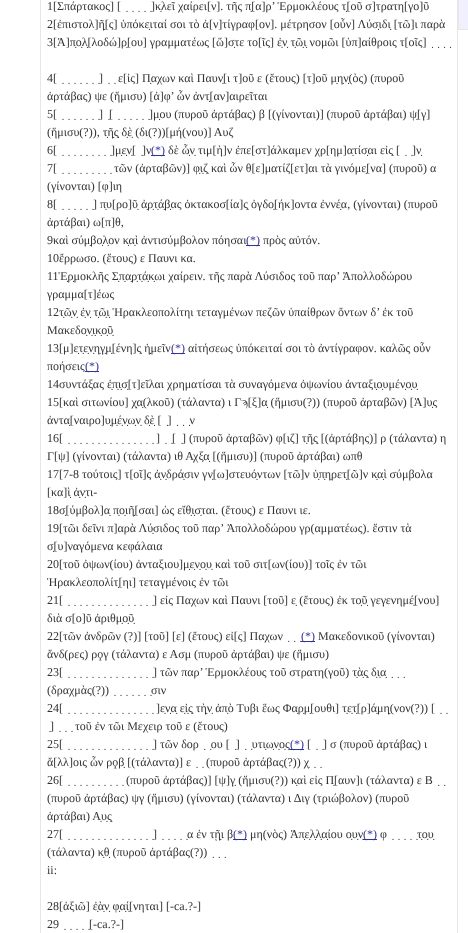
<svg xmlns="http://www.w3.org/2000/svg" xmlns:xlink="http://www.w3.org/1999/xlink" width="468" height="933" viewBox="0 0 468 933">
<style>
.cls-1{font:12px Liberation Serif;fill:#333333}
.cls-2{font:12px Liberation Serif;fill:#333399}
</style>
<rect width="100%" height="100%" fill="#ffffff"/>
<rect fill="#e7e7e7" x="457" y="0" width="1" height="933"/>
<rect fill="#e7e7e7" x="40" y="0" width="1" height="933"/>
<rect fill="#333399" x="171" y="353" width="14" height="1"/>
<rect fill="#333399" x="85" y="371" width="14" height="1"/>
<rect fill="#333399" x="301" y="641" width="14" height="1"/>
<rect fill="#333399" x="290" y="749" width="14" height="1"/>
<rect fill="#333399" x="233" y="839" width="14" height="1"/>
<rect fill="#333399" x="363" y="839" width="14" height="1"/>
<rect fill="#e7e7e7" x="458" y="29" width="10" height="1"/>
<rect fill="#e7e7e7" x="458" y="0" width="1" height="30"/>
<rect fill="#f0f0ff" x="459" y="0" width="9" height="29"/>
<text class="cls-1" xml:space="preserve"><tspan x="47" y="10">1[Σπάρτακος] [  ̣  ̣  ̣  ̣  ̣]κ̣λεῖ χαίρει[ν]. τῆς π̣[α]ρ’ Ἑρμοκλέους τ̣[οῦ σ]τρατη[γο]ῦ</tspan><tspan x="47" y="28">2[ἐπιστολ]ῆ̣[ς] ὑπόκε̣ιταί σοι τὸ ἀ[ν]τίγραφ[ον]. μέτρησον [οὖν] Λύσ̣ιδι̣ [τῶ]ι παρὰ</tspan><tspan x="47" y="46">3[Ἀ]π̣ο̣λ̣[λοδώ]ρ̣[ου] γραμματέως [ὥ]σ̣τε το[ῖς] ἐ̣ν̣ τ̣ῶ̣ι̣ νομῶι [ὑπ]αίθροις τ[οῖς]  ̣  ̣  ̣  ̣</tspan></text>
<text class="cls-1" xml:space="preserve"><tspan x="47" y="82">4[  ̣  ̣  ̣  ̣  ̣  ̣  ̣]  ̣  ̣ ε[ἰς] Π̣αχων καὶ Παυν̣[ι τ]οῦ ε (ἔτους) [τ]οῦ μ̣η̣ν̣(ὸς) (πυροῦ</tspan><tspan x="47" y="100">ἀρτάβας) ψε (ἥμισυ) [ἀ]φ’ ὦν ἀντ̣[αν]αιρεῖται</tspan><tspan x="47" y="118">5[  ̣  ̣  ̣  ̣  ̣  ̣  ̣]  ̣[  ̣  ̣  ̣  ̣  ̣  ̣]μ̣ου (πυροῦ ἀρτάβας) β [(γίνονται)] (πυροῦ ἀρτάβαι) ψ̣[γ]</tspan><tspan x="47" y="136">(ἥμισυ(?)), τ̣ῆ̣ς̣ δ̣ὲ̣ (δι(?))[μή(νου)] Αυζ</tspan><tspan x="47" y="154">6[  ̣  ̣  ̣  ̣  ̣  ̣  ̣  ̣  ̣]μ̣ε̣ν̣[  ̣]ν</tspan></text>
<rect fill="#333399" x="151" y="155" width="14" height="1"/>
<text class="cls-2" x="151" y="154">(*)</text>
<text class="cls-1" xml:space="preserve" x="168" y="154">δὲ ὧ̣ν̣ τιμ[ὴ]ν ἐπε[στ]άλκαμεν χρ[ημ]α̣τίσ̣αι εἰς̣ [  ̣  ̣]ν̣</text>
<text class="cls-1" xml:space="preserve"><tspan x="47" y="172">7[  ̣  ̣  ̣  ̣  ̣  ̣  ̣  ̣  ̣ τῶν (ἀρταβῶν)] φ̣ι̣ζ̣ καὶ ὧν θ[ε]ματίζ[ετ]αι τὰ γινόμε̣[να] (πυροῦ) α</tspan><tspan x="47" y="190">(γίνονται) [φ]ιη</tspan><tspan x="47" y="208">8[  ̣  ̣  ̣  ̣  ̣  ̣] π̣υ[ρο]ῦ̣ ἀ̣ρ̣τ̣ά̣β̣ας ὀκτακοσ[ία]ς̣ ὀγδο̣[ήκ]οντα ἐννέ̣α, (γίνονται) (πυροῦ</tspan><tspan x="47" y="226">ἀρτάβαι) ω[π]θ,</tspan><tspan x="47" y="244">9καὶ σύμ̣βο̣λ̣ον κ̣α̣ὶ ἀντισύμβολον πόησαι</tspan></text>
<rect fill="#333399" x="246" y="245" width="14" height="1"/>
<text class="cls-2" x="246" y="244">(*)</text>
<text class="cls-1" x="263" y="244">πρὸς αὐτόν.</text>
<text class="cls-1"><tspan x="47" y="262">10ἔρρωσο. (ἔτους) ε Παυνι κα.</tspan><tspan x="47" y="280">11Ἑ̣ρ̣μοκλῆς Σ̣π̣α̣ρ̣τ̣ά̣κ̣ωι χαίρειν. τῆς παρὰ Λύσιδος τοῦ παρ’ Ἀπολλοδώρου</tspan><tspan x="47" y="298">γραμμα[τ]έως</tspan><tspan x="47" y="316">12τ̣ῶ̣ν̣ ἐ̣ν̣ τ̣ῶ̣ι̣ Ἡρακλεοπολίτηι τεταγμένων πεζῶν ὑπαίθρων ὄντων δ’ ἐκ τοῦ</tspan><tspan x="47" y="334">Μακεδο̣ν̣ι̣κ̣ο̣ῦ̣</tspan><tspan x="47" y="352">13[μ]ε̣τ̣ε̣ν̣η̣γ̣μ̣[ένη]ς̣ ἡ̣μεῖν</tspan></text>
<text class="cls-2" x="171" y="352">(*)</text>
<text class="cls-1" x="188" y="352">αἰτήσεως ὑπόκειταί σοι τὸ ἀντίγραφον. καλῶς οὖν</text>
<text class="cls-1" x="47" y="370">ποήσεις</text>
<text class="cls-2" x="85" y="370">(*)</text>
<text class="cls-1" xml:space="preserve"><tspan x="47" y="388">14συντάξας ἐ̣π̣ι̣σ̣[τ]εῖλαι χρηματίσαι τὰ συναγόμενα ὀψωνίου ἀνταξι̣ο̣υμέν̣ο̣υ̣</tspan><tspan x="47" y="406">15[καὶ σιτωνίου] χ̣α̣(λκοῦ) (τάλαντα) ι Γϡ[ξ]α̣ (ἥμισυ(?)) (πυροῦ ἀρταβῶν) [Ἀ]υ̣ς</tspan><tspan x="47" y="424">ἀντα̣[ναιρο]υ̣μ̣έ̣ν̣ω̣ν̣ δ̣ὲ̣ [  ̣]  ̣  ̣  ̣ν</tspan><tspan x="47" y="442">16[  ̣  ̣  ̣  ̣  ̣  ̣  ̣  ̣  ̣  ̣  ̣  ̣  ̣  ̣  ̣ ]  ̣  ̣[  ̣] (πυροῦ ἀρταβῶν) φ[ιζ] τ̣ῆ̣ς̣ [(ἀρτάβης)] ρ (τάλαντα) η</tspan><tspan x="47" y="460">Γ[ψ] (γίνονται) (τάλαντα) ιθ Αχξα̣ [(ἥμισυ)] (πυροῦ ἀρτάβαι) ωπθ</tspan><tspan x="47" y="478">17[7-8 τούτοις] τ[οῖ]ς ἀ̣ν̣δρά̣σιν γν̣[ω]στευό̣ντων [τῶ]ν ὑ̣π̣η̣ρετ̣[ῶ]ν κ̣α̣ὶ σύμβολα</tspan><tspan x="47" y="496">[κα]ὶ̣ ἀ̣ν̣τι-</tspan><tspan x="47" y="514">18σ̣[ύμβολ]α̣ π̣ο̣ιῆ̣[σαι] ὡς εἴθ̣ι̣σ̣ται. (ἔτους) ε Παυνι ιε.</tspan><tspan x="47" y="532">19[τῶι δεῖνι π]αρὰ Λύ̣σιδος τοῦ παρ’ Ἀπολλοδώρου γρ(αμματέως). ἔστιν τὰ</tspan><tspan x="47" y="550">σ̣[υ]ναγόμενα κεφάλαια</tspan><tspan x="47" y="568">20[τοῦ ὀψων(ίου) ἀνταξιου]μ̣ε̣ν̣ο̣υ̣ καὶ τοῦ σιτ[ων(ίου)] τοῖς ἐν τῶι</tspan><tspan x="47" y="586">Ἡρακλεοπολίτ̣[ηι] τεταγμένοις ἐν τῶι</tspan><tspan x="47" y="604">21[  ̣  ̣  ̣  ̣  ̣  ̣  ̣  ̣  ̣  ̣  ̣  ̣  ̣  ̣  ̣] εἰς Παχων καὶ Παυνι [τοῦ] ε̣ (ἔτους) ἐκ το̣ῦ̣ γεγενημέ̣[νου]</tspan><tspan x="47" y="622">διὰ σ[ο]ῦ ἀριθμ̣ο̣ῦ̣</tspan><tspan x="47" y="640">22[τῶν ἀνδρῶν (?)] [τοῦ] [ε] (ἔτους) εἰ[ς] Παχων  ̣  ̣  ̣</tspan></text>
<text class="cls-2" x="301" y="640">(*)</text>
<text class="cls-1" x="318" y="640">Μακεδονικοῦ (γίνονται)</text>
<text class="cls-1" xml:space="preserve"><tspan x="47" y="658">ἄνδ(ρες) ρϙγ (τάλαντα) ε Ασμ (πυροῦ ἀρτάβαι) ψε (ἥμισυ)</tspan><tspan x="47" y="676">23[  ̣  ̣  ̣  ̣  ̣  ̣  ̣  ̣  ̣  ̣  ̣  ̣  ̣  ̣  ̣] τῶν παρ’ Ἑρμοκλέους τοῦ στρατη(γοῦ) τ̣ὰ̣ς̣ δ̣ι̣α̣  ̣  ̣  ̣</tspan><tspan x="47" y="694">(δραχμὰς(?))  ̣  ̣  ̣  ̣  ̣  ̣  ̣σιν</tspan><tspan x="47" y="712">24[  ̣  ̣  ̣  ̣  ̣  ̣  ̣  ̣  ̣  ̣  ̣  ̣  ̣  ̣  ̣ ]ε̣ν̣α̣ ε̣ἰ̣ς̣ τὴ̣ν̣ ἀπ̣ὸ Τυβι ἕως Φα̣ρ̣μ̣[ουθι] τ̣ε̣τ̣[ρ]ά̣μη̣(νον(?)) [  ̣  ̣</tspan></text>
<text class="cls-1" xml:space="preserve" x="50" y="730">̣]  ̣  ̣  ̣ τοῦ ἐν τῶι Μεχειρ τοῦ ε (ἔτους)</text>
<text class="cls-1" xml:space="preserve" x="47" y="748">25[  ̣  ̣  ̣  ̣  ̣  ̣  ̣  ̣  ̣  ̣  ̣  ̣  ̣  ̣  ̣] τῶν δορ  ̣  ̣ου [  ̣]  ̣  ̣υτι̣ω̣ν̣ο̣ς̣</text>
<text class="cls-2" x="290" y="748">(*)</text>
<text class="cls-1" xml:space="preserve" x="307" y="748">[  ̣  ̣] σ (πυροῦ ἀρτάβας) ι</text>
<text class="cls-1" x="47" y="766">ἄ[λλ]οις ὧν ρϙβ̣ [(τάλαντα)] ε</text>
<text class="cls-1" xml:space="preserve" x="197" y="766">̣  ̣ (πυροῦ ἀρτάβας(?)) χ̣  ̣  ̣</text>
<text class="cls-1" xml:space="preserve"><tspan x="47" y="784">26[  ̣  ̣  ̣  ̣  ̣  ̣  ̣  ̣  ̣  ̣ (πυροῦ ἀρτάβας)] [ψ]γ̣ (ἥμισυ(?)) κ̣αὶ εἰς Π̣[αυν]ι (τάλαντα) ε Β  ̣  ̣</tspan><tspan x="47" y="802">(πυροῦ ἀρτάβας) ψγ (ἥμισυ) (γίνονται) (τάλαντα) ι Διγ (τριώβολον) (πυροῦ</tspan><tspan x="47" y="820">ἀρτάβαι) Α̣υ̣ς̣</tspan><tspan x="47" y="838">27[  ̣  ̣  ̣  ̣  ̣  ̣  ̣  ̣  ̣  ̣  ̣  ̣  ̣  ̣  ̣]  ̣  ̣  ̣  ̣  ̣α ἐν τῇ̣ι β</tspan></text>
<text class="cls-2" x="233" y="838">(*)</text>
<text class="cls-1" x="250" y="838">μη(νὸς) Ἀπ̣ε̣λ̣λ̣α̣ίου ο̣υ̣ν̣</text>
<text class="cls-2" x="363" y="838">(*)</text>
<text class="cls-1" xml:space="preserve" x="380" y="838">φ  ̣  ̣  ̣  ̣  ̣τ̣ο̣υ̣</text>
<text class="cls-1" xml:space="preserve"><tspan x="47" y="856">(τάλαντα) κ̣θ̣ (πυροῦ ἀρτάβας(?))  ̣  ̣  ̣</tspan><tspan x="47" y="874">ii:</tspan></text>
<text class="cls-1"><tspan x="47" y="910">28[ἀξιῶ] ἐ̣ὰ̣ν̣ φ̣α̣ί̣[νηται] [-ca.?-]</tspan><tspan x="47" y="928">29</tspan></text>
<text class="cls-1" xml:space="preserve" x="65" y="928">̣  ̣  ̣  ̣  ̣[-ca.?-]</text>
</svg>
